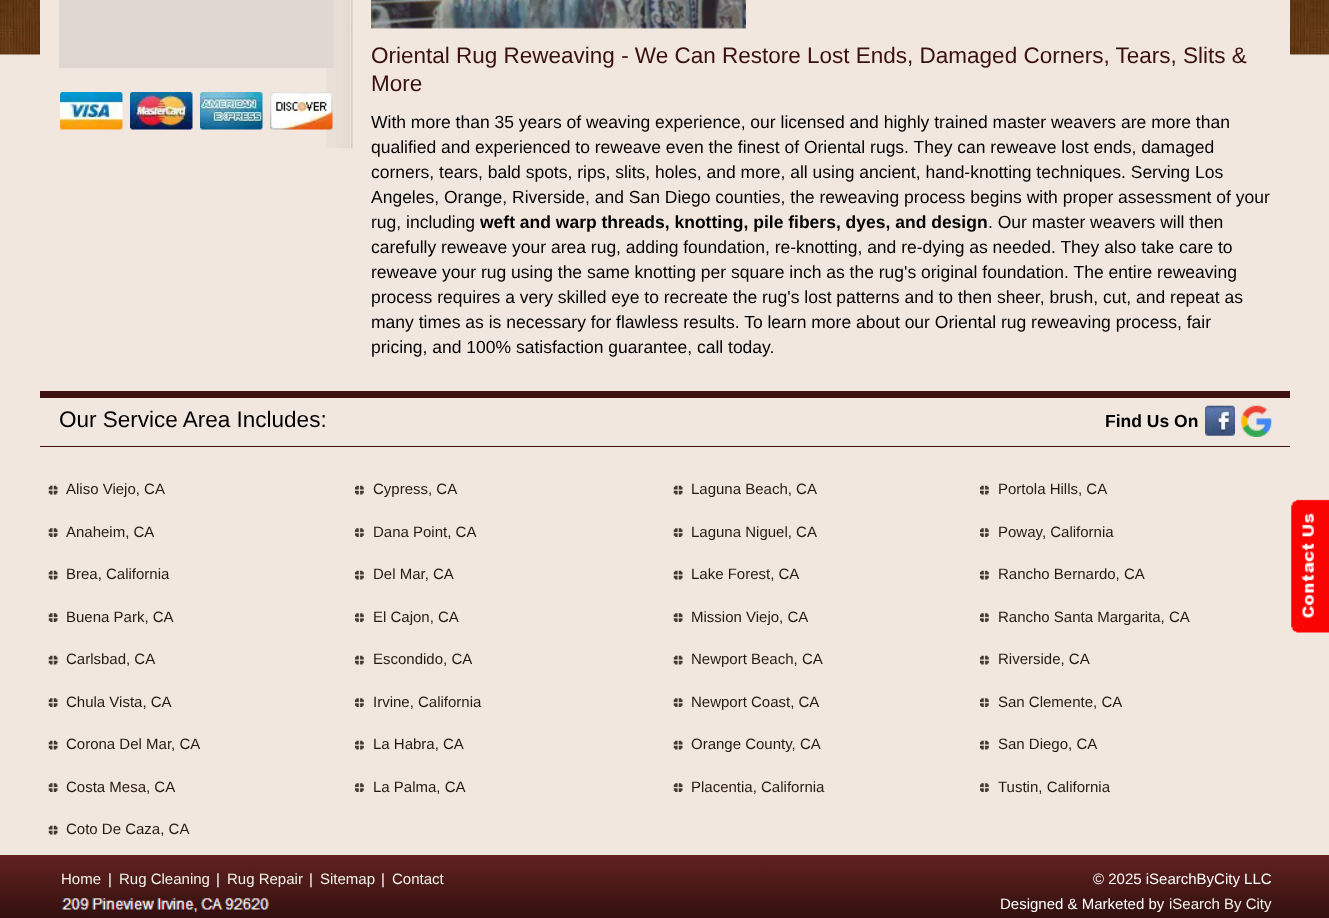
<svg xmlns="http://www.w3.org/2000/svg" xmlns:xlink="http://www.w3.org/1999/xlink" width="1329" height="918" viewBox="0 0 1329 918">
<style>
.cls-1{font:22.5px Liberation Sans;fill:#39100d}
.cls-2{font:17.5px Liberation Sans;fill:#000000}
.cls-3{font:bold 17.5px Liberation Sans;fill:#000000}
.cls-4{font:22.5px Liberation Sans;fill:#000000}
.cls-5{font:15px Liberation Sans;fill:#261911}
.cls-6{font:15px Liberation Sans;fill:#f1f2e9}
.cls-7{font:15px Liberation Sans;fill:#ffffff}
</style>
<defs>
<linearGradient id="g1" gradientUnits="userSpaceOnUse" x1="665" y1="855" x2="665" y2="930"><stop offset="0" stop-color="#622220"/><stop offset="0.85" stop-color="#32100f"/><stop offset="1" stop-color="#340e0b"/></linearGradient>
</defs>
<rect width="100%" height="100%" fill="#f2e7de"/>
<image xlink:href="image0.png" x="0" y="0" width="1329" height="55"/>
<rect fill="#f2e7de" x="40" y="0" width="1250" height="55"/>
<image xlink:href="image1.png" x="326" y="0" width="27" height="149"/>
<rect fill="#dfd7d1" x="59" y="0" width="275" height="68"/>
<image xlink:href="image2.png" x="60" y="92" width="63" height="38"/>
<image xlink:href="image3.png" x="130" y="92" width="63" height="38"/>
<image xlink:href="image4.png" x="200" y="92" width="63" height="38"/>
<image xlink:href="image5.png" x="270" y="92" width="63" height="38"/>
<image xlink:href="image6.png" x="371" y="0" width="375" height="29"/>
<rect fill="#3e110e" x="40" y="391" width="1250" height="7"/>
<rect fill="#3e110e" x="40" y="446" width="1250" height="1"/>
<image xlink:href="image7.png" x="1205" y="405" width="30" height="31"/>
<image xlink:href="image8.png" x="1241" y="405" width="31" height="32"/>
<image xlink:href="image9.png" x="48" y="485" width="10" height="10"/>
<image xlink:href="image10.png" x="48" y="528" width="10" height="9"/>
<image xlink:href="image9.png" x="48" y="570" width="10" height="10"/>
<image xlink:href="image10.png" x="48" y="613" width="10" height="9"/>
<image xlink:href="image9.png" x="48" y="655" width="10" height="10"/>
<image xlink:href="image10.png" x="48" y="698" width="10" height="9"/>
<image xlink:href="image9.png" x="48" y="740" width="10" height="10"/>
<image xlink:href="image10.png" x="48" y="783" width="10" height="9"/>
<image xlink:href="image9.png" x="48" y="825" width="10" height="10"/>
<image xlink:href="image11.png" x="355" y="485" width="9" height="10"/>
<image xlink:href="image12.png" x="355" y="528" width="9" height="9"/>
<image xlink:href="image11.png" x="355" y="570" width="9" height="10"/>
<image xlink:href="image12.png" x="355" y="613" width="9" height="9"/>
<image xlink:href="image11.png" x="355" y="655" width="9" height="10"/>
<image xlink:href="image12.png" x="355" y="698" width="9" height="9"/>
<image xlink:href="image11.png" x="355" y="740" width="9" height="10"/>
<image xlink:href="image12.png" x="355" y="783" width="9" height="9"/>
<image xlink:href="image13.png" x="673" y="485" width="10" height="10"/>
<image xlink:href="image14.png" x="673" y="528" width="10" height="9"/>
<image xlink:href="image13.png" x="673" y="570" width="10" height="10"/>
<image xlink:href="image14.png" x="673" y="613" width="10" height="9"/>
<image xlink:href="image13.png" x="673" y="655" width="10" height="10"/>
<image xlink:href="image14.png" x="673" y="698" width="10" height="9"/>
<image xlink:href="image13.png" x="673" y="740" width="10" height="10"/>
<image xlink:href="image14.png" x="673" y="783" width="10" height="9"/>
<image xlink:href="image15.png" x="980" y="485" width="9" height="10"/>
<image xlink:href="image16.png" x="980" y="528" width="9" height="9"/>
<image xlink:href="image15.png" x="980" y="570" width="9" height="10"/>
<image xlink:href="image16.png" x="980" y="613" width="9" height="9"/>
<image xlink:href="image15.png" x="980" y="655" width="9" height="10"/>
<image xlink:href="image16.png" x="980" y="698" width="9" height="9"/>
<image xlink:href="image15.png" x="980" y="740" width="9" height="10"/>
<image xlink:href="image16.png" x="980" y="783" width="9" height="9"/>
<image xlink:href="image17.png" x="1291" y="499" width="38" height="134"/>
<rect fill="url(#g1)" x="0" y="855" width="1329" height="63"/>
<image xlink:href="image18.png" x="61" y="897" width="209" height="17"/>
<text class="cls-1"><tspan x="371" y="63">Oriental Rug Reweaving - We Can Restore Lost Ends, Damaged Corners, Tears, Slits &amp;</tspan><tspan x="371" y="91">More</tspan></text>
<text class="cls-2"><tspan x="371" y="128">With more than 35 years of weaving experience, our licensed and highly trained master weavers are more than</tspan><tspan x="371" y="153">qualified and experienced to reweave even the finest of Oriental rugs. They can reweave lost ends, damaged</tspan><tspan x="371" y="178">corners, tears, bald spots, rips, slits, holes, and more, all using ancient, hand-knotting techniques. Serving Los</tspan><tspan x="371" y="203">Angeles, Orange, Riverside, and San Diego counties, the reweaving process begins with proper assessment of your</tspan><tspan x="371" y="228">rug, including</tspan></text>
<text class="cls-3" x="480" y="228">weft and warp threads, knotting, pile fibers, dyes, and design</text>
<text class="cls-2" x="988" y="228">. Our master weavers will then</text>
<text class="cls-2"><tspan x="371" y="253">carefully reweave your area rug, adding foundation, re-knotting, and re-dying as needed. They also take care to</tspan><tspan x="371" y="278">reweave your rug using the same knotting per square inch as the rug's original foundation. The entire reweaving</tspan><tspan x="371" y="303">process requires a very skilled eye to recreate the rug's lost patterns and to then sheer, brush, cut, and repeat as</tspan><tspan x="371" y="328">many times as is necessary for flawless results. To learn more about our Oriental rug reweaving process, fair</tspan><tspan x="371" y="353">pricing, and 100% satisfaction guarantee, call today.</tspan></text>
<text class="cls-4" x="59" y="427">Our Service Area Includes:</text>
<text class="cls-3" x="1105" y="427">Find Us On</text>
<text class="cls-5" x="66" y="494">Aliso Viejo, CA</text>
<text class="cls-5" x="66" y="537">Anaheim, CA</text>
<text class="cls-5" x="66" y="579">Brea, California</text>
<text class="cls-5" x="66" y="622">Buena Park, CA</text>
<text class="cls-5" x="66" y="664">Carlsbad, CA</text>
<text class="cls-5" x="66" y="707">Chula Vista, CA</text>
<text class="cls-5" x="66" y="749">Corona Del Mar, CA</text>
<text class="cls-5" x="66" y="792">Costa Mesa, CA</text>
<text class="cls-5" x="66" y="834">Coto De Caza, CA</text>
<text class="cls-5" x="373" y="494">Cypress, CA</text>
<text class="cls-5" x="373" y="537">Dana Point, CA</text>
<text class="cls-5" x="373" y="579">Del Mar, CA</text>
<text class="cls-5" x="373" y="622">El Cajon, CA</text>
<text class="cls-5" x="373" y="664">Escondido, CA</text>
<text class="cls-5" x="373" y="707">Irvine, California</text>
<text class="cls-5" x="373" y="749">La Habra, CA</text>
<text class="cls-5" x="373" y="792">La Palma, CA</text>
<text class="cls-5" x="691" y="494">Laguna Beach, CA</text>
<text class="cls-5" x="691" y="537">Laguna Niguel, CA</text>
<text class="cls-5" x="691" y="579">Lake Forest, CA</text>
<text class="cls-5" x="691" y="622">Mission Viejo, CA</text>
<text class="cls-5" x="691" y="664">Newport Beach, CA</text>
<text class="cls-5" x="691" y="707">Newport Coast, CA</text>
<text class="cls-5" x="691" y="749">Orange County, CA</text>
<text class="cls-5" x="691" y="792">Placentia, California</text>
<text class="cls-5" x="998" y="494">Portola Hills, CA</text>
<text class="cls-5" x="998" y="537">Poway, California</text>
<text class="cls-5" x="998" y="579">Rancho Bernardo, CA</text>
<text class="cls-5" x="998" y="622">Rancho Santa Margarita, CA</text>
<text class="cls-5" x="998" y="664">Riverside, CA</text>
<text class="cls-5" x="998" y="707">San Clemente, CA</text>
<text class="cls-5" x="998" y="749">San Diego, CA</text>
<text class="cls-5" x="998" y="792">Tustin, California</text>
<text class="cls-6" x="61" y="884">Home</text>
<text class="cls-7" x="108" y="884">|</text>
<text class="cls-6" x="119" y="884">Rug Cleaning</text>
<text class="cls-7" x="216" y="884">|</text>
<text class="cls-6" x="227" y="884">Rug Repair</text>
<text class="cls-7" x="309" y="884">|</text>
<text class="cls-6" x="320" y="884">Sitemap</text>
<text class="cls-7" x="381" y="884">|</text>
<text class="cls-6" x="392" y="884">Contact</text>
<text class="cls-7" x="1093" y="884">© 2025 iSearchByCity LLC</text>
<text class="cls-7" x="1000" y="909">Designed &amp; Marketed by</text>
<text class="cls-6" x="1169" y="909">iSearch By City</text>
</svg>
